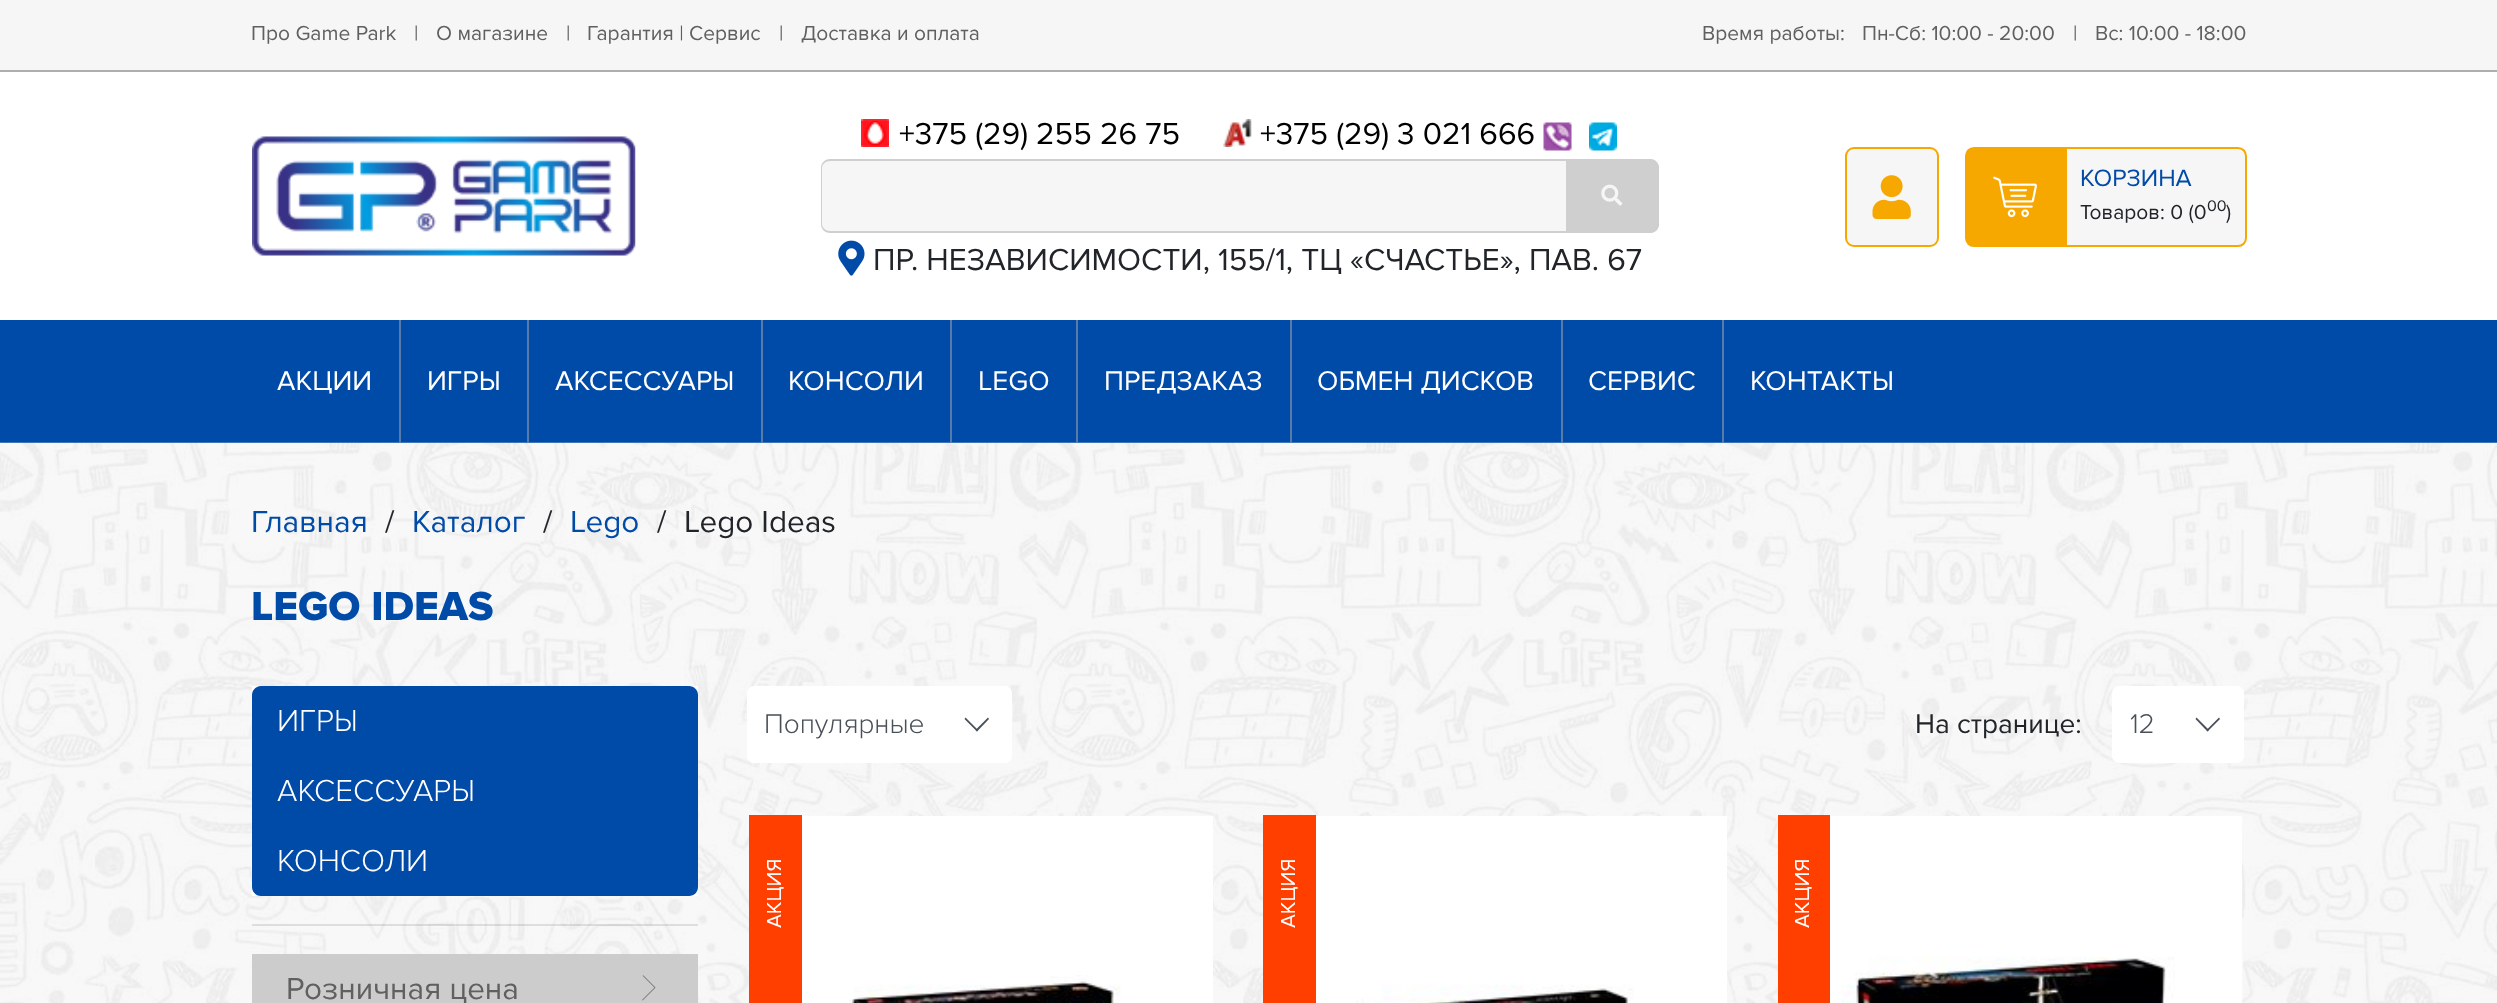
<svg xmlns="http://www.w3.org/2000/svg" xmlns:xlink="http://www.w3.org/1999/xlink" width="2497" height="1003" viewBox="0 0 2497 1003">
<style>
.cls-1{font:21px Proxima Nova;fill:#606060}
.cls-2{font:31.5px Proxima Nova;fill:#000000}
.cls-3{font:31.5px Proxima Nova;fill:#212529}
.cls-4{font:24.5px Proxima Nova;fill:#004aa8}
.cls-5{font:21px Proxima Nova;fill:#212529}
.cls-6{font:16px Proxima Nova;fill:#212529}
.cls-7{font:28px Proxima Nova;fill:#ffffff}
.cls-8{font:31.5px Proxima Nova;fill:#004aa8}
.cls-9{font:800 42px Proxima Nova;fill:#004aa8}
.cls-10{font:300 31.5px Proxima Nova;fill:#ffffff}
.cls-11{font:31.5px Proxima Nova;fill:#606060}
.cls-12{font:300 28px Proxima Nova;fill:#495057}
.cls-13{font:28px Proxima Nova;fill:#212529}
.cls-14{font:21px Proxima Nova;fill:#ffffff}
</style>
<rect width="100%" height="100%" fill="#ffffff"/>
<rect fill="#f6f6f6" x="0" y="0" width="2497" height="70"/>
<rect fill="#aeaeae" x="0" y="70" width="2497" height="2"/>
<image xlink:href="image0.png" x="252" y="136" width="384" height="120"/>
<image xlink:href="image1.png" x="861" y="119" width="28" height="28"/>
<image xlink:href="image2.png" x="1223" y="119" width="29" height="28"/>
<image xlink:href="image3.png" x="1543" y="122" width="29" height="29"/>
<image xlink:href="image4.png" x="1589" y="122" width="28" height="29"/>
<path fill="#f6f6f6" d="M830 159H1566V233H830C825 233 821 229 821 224V168C821 163 825 159 830 159Z"/>
<path fill="#cfcfcf" fill-rule="evenodd" d="M830 159H1566V233H830C825 233 821 229 821 224V168C821 163 825 159 830 159ZM830 161H1566V231H830C826 231 822 228 822 224V168C822 164 826 161 830 161Z"/>
<path fill="#cfcfcf" d="M1566 159H1650C1655 159 1659 163 1659 168V224C1659 229 1655 233 1650 233H1566Z"/>
<path fill="#cfcfcf" fill-rule="evenodd" d="M1566 159H1650C1655 159 1659 163 1659 168V224C1659 229 1655 233 1650 233H1566ZM1566 161H1650C1654 161 1657 164 1657 168V224C1657 228 1654 231 1650 231H1566Z"/>
<image xlink:href="image5.png" x="1601" y="184" width="22" height="22"/>
<image xlink:href="image6.png" x="838" y="240" width="27" height="36"/>
<rect fill="#f6f6f6" stroke="#f7a800" stroke-width="2" x="1846" y="148" width="92" height="98" rx="8"/>
<image xlink:href="image7.png" x="1872" y="175" width="39" height="44"/>
<path fill="#f7a800" stroke="#f7a800" stroke-width="2" d="M1974 148H2064V246H1974C1969.5 246 1966 242.5 1966 238V156C1966 151.5 1969.5 148 1974 148Z"/>
<image xlink:href="image8.png" x="1993" y="176" width="44" height="42"/>
<path fill="#f6f6f6" stroke="#f7a800" stroke-width="2" d="M2066 148H2238C2242.5 148 2246 151.5 2246 156V238C2246 242.5 2242.5 246 2238 246H2066Z"/>
<rect fill="#004aa8" x="0" y="320" width="2497" height="123"/>
<image xlink:href="image9.png" x="0" y="442" width="2497" height="561"/>
<rect fill="#577cab" x="399" y="320" width="2" height="123"/>
<rect fill="#577cab" x="527" y="320" width="2" height="123"/>
<rect fill="#577cab" x="761" y="320" width="2" height="123"/>
<rect fill="#577cab" x="950" y="320" width="2" height="123"/>
<rect fill="#577cab" x="1076" y="320" width="2" height="123"/>
<rect fill="#577cab" x="1290" y="320" width="2" height="123"/>
<rect fill="#577cab" x="1561" y="320" width="2" height="123"/>
<rect fill="#577cab" x="1722" y="320" width="2" height="123"/>
<rect fill="#ffffff" x="252" y="686" width="446" height="210"/>
<path fill="#004aa8" d="M261 686H689C694 686 698 690 698 695V756H252V695C252 690 256 686 261 686Z"/>
<rect fill="#004aa8" x="252" y="756" width="446" height="70"/>
<path fill="#004aa8" d="M252 826H698V887C698 892 694 896 689 896H261C256 896 252 892 252 887Z"/>
<rect fill="#000000" fill-opacity="0.1" x="252" y="924" width="446" height="2"/>
<rect fill="#cccccc" x="252" y="954" width="446" height="49"/>
<path fill="#656565" d="M655.5 987.5L643.5 975.5H642.5L654.5 987.5L642 1000L642.5 1000.5Z"/>
<rect fill="#ffffff" x="747" y="686" width="265" height="77" rx="7"/>
<path fill="#495057" d="M988 717.5L989 719L977 731.5L975.5 730Z"/>
<path fill="#495057" d="M965.5 717.5L978 730L977 731.5L964.5 719Z"/>
<rect fill="#ffffff" x="2112" y="686" width="132" height="77" rx="7"/>
<path fill="#495057" d="M2219 717.5L2220 719L2207.5 731.5L2206.5 730Z"/>
<path fill="#495057" d="M2196.5 717.5L2209 730L2207.5 731.5L2195.5 719Z"/>
<rect fill="#ffffff" x="802" y="816" width="411" height="187"/>
<rect fill="#ff3f00" x="749" y="815" width="53" height="188"/>
<image xlink:href="image10.png" x="849" y="975" width="272" height="28"/>
<rect fill="#ffffff" x="1316" y="816" width="411" height="187"/>
<rect fill="#ff3f00" x="1263" y="815" width="53" height="188"/>
<image xlink:href="image11.png" x="1356" y="984" width="278" height="19"/>
<rect fill="#ffffff" x="1830" y="816" width="412" height="187"/>
<rect fill="#ff3f00" x="1778" y="815" width="52" height="188"/>
<image xlink:href="image12.png" x="1841" y="956" width="334" height="47"/>
<text class="cls-1" x="251" y="40">Про Game Park</text>
<text class="cls-1" x="414" y="40">|</text>
<text class="cls-1" x="436" y="40">О магазине</text>
<text class="cls-1" x="566" y="40">|</text>
<text class="cls-1" x="587" y="40">Гарантия | Сервис</text>
<text class="cls-1" x="779" y="40">|</text>
<text class="cls-1" x="801" y="40">Доставка и оплата</text>
<text class="cls-1" x="1702" y="40">Время работы:</text>
<text class="cls-1" x="1862" y="40">Пн-Сб: 10:00 - 20:00</text>
<text class="cls-1" x="2073" y="40">|</text>
<text class="cls-1" x="2095" y="40">Вс: 10:00 - 18:00</text>
<text class="cls-2" x="899" y="144">+375 (29) 255 26 75</text>
<text class="cls-2" x="1260" y="144">+375 (29) 3 021 666</text>
<text class="cls-3" x="873" y="270">ПР. НЕЗАВИСИМОСТИ, 155/1, ТЦ «СЧАСТЬЕ», ПАВ. 67</text>
<text class="cls-4" x="2080" y="186">КОРЗИНА</text>
<text class="cls-5" x="2080" y="219">Товаров: 0 (0</text>
<text class="cls-6" x="2207" y="211">00</text>
<text class="cls-5" x="2226" y="219">)</text>
<text class="cls-7" x="277" y="390">АКЦИИ</text>
<text class="cls-7" x="427" y="390">ИГРЫ</text>
<text class="cls-7" x="555" y="390">АКСЕССУАРЫ</text>
<text class="cls-7" x="788" y="390">КОНСОЛИ</text>
<text class="cls-7" x="978" y="390">LEGO</text>
<text class="cls-7" x="1104" y="390">ПРЕДЗАКАЗ</text>
<text class="cls-7" x="1317" y="390">ОБМЕН ДИСКОВ</text>
<text class="cls-7" x="1588" y="390">СЕРВИС</text>
<text class="cls-7" x="1750" y="390">КОНТАКТЫ</text>
<text class="cls-8" x="251" y="532">Главная</text>
<text class="cls-3" x="385" y="532">/</text>
<text class="cls-8" x="412" y="532">Каталог</text>
<text class="cls-3" x="543" y="532">/</text>
<text class="cls-8" x="570" y="532">Lego</text>
<text class="cls-3" x="657" y="532">/</text>
<text class="cls-3" x="684" y="532">Lego Ideas</text>
<text class="cls-9" x="251" y="620">LEGO IDEAS</text>
<text class="cls-10" x="277" y="731">ИГРЫ</text>
<text class="cls-10" x="277" y="801">АКСЕССУАРЫ</text>
<text class="cls-10" x="277" y="871">КОНСОЛИ</text>
<text class="cls-11" x="286" y="999">Розничная цена</text>
<text class="cls-12" x="764" y="733">Популярные</text>
<text class="cls-13" x="1915" y="733">На странице:</text>
<text class="cls-12" x="2130" y="733">12</text>
<text class="cls-14" x="781" y="928" transform="rotate(-90 781 928)">АКЦИЯ</text>
<text class="cls-14" x="1295" y="928" transform="rotate(-90 1295 928)">АКЦИЯ</text>
<text class="cls-14" x="1809" y="928" transform="rotate(-90 1809 928)">АКЦИЯ</text>
</svg>
